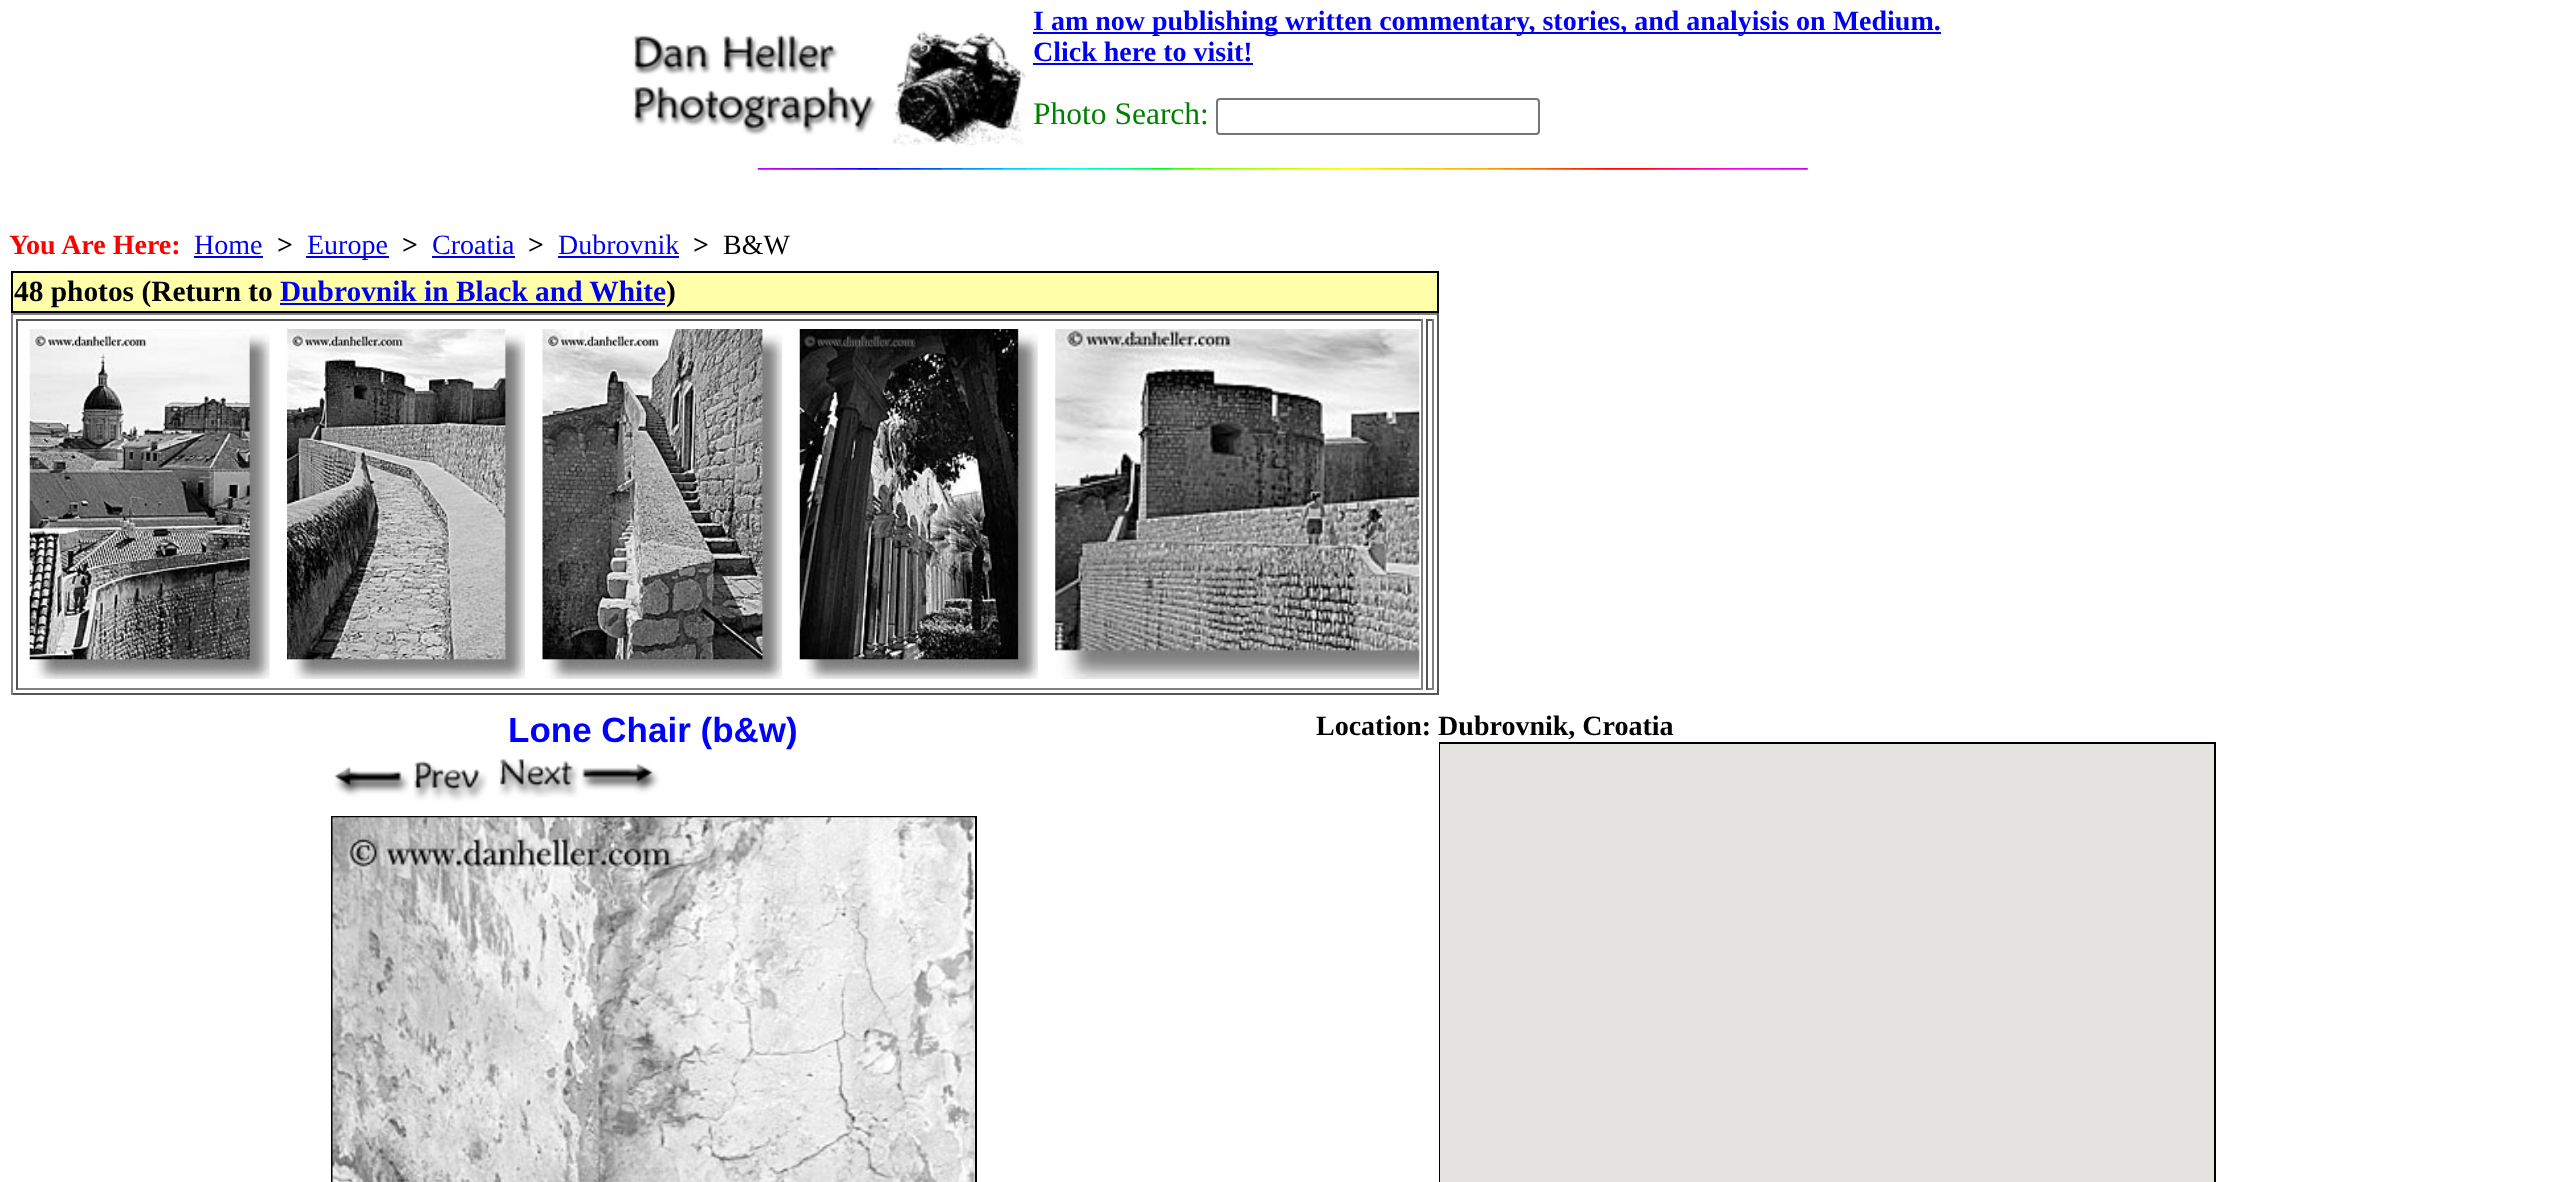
<svg xmlns="http://www.w3.org/2000/svg" xmlns:xlink="http://www.w3.org/1999/xlink" width="2565" height="1182" viewBox="0 0 2565 1182">
<style>
.cls-1{font:bold 28px Liberation Serif;fill:#0000ee}
.cls-2{font:31.5px Liberation Serif;fill:#008000}
.cls-3{font:bold 28px Liberation Serif;fill:#ff0000}
.cls-4{font:28px Liberation Serif;fill:#0000ee}
.cls-5{font:bold 28px Liberation Serif;fill:#000000}
.cls-6{font:28px Liberation Serif;fill:#000000}
.cls-7{font:bold 29.4px Liberation Serif;fill:#000000}
.cls-8{font:bold 29.4px Liberation Serif;fill:#0000ee}
.cls-9{font:bold 35px Liberation Sans;fill:#0000ff}
</style>
<rect width="100%" height="100%" fill="#ffffff"/>
<image xlink:href="image0.png" x="633" y="31" width="393" height="115"/>
<rect fill="#0000ee" x="1033" y="32" width="908" height="2"/>
<rect fill="#0000ee" x="1033" y="63" width="220" height="2"/>
<rect fill="none" stroke="#767676" stroke-width="2" x="1217" y="99" width="322" height="35" rx="3"/>
<image xlink:href="image1.png" x="757" y="168" width="1051" height="2"/>
<rect fill="#0000ee" x="194" y="256" width="69" height="2"/>
<rect fill="#0000ee" x="306" y="256" width="83" height="2"/>
<rect fill="#0000ee" x="432" y="256" width="83" height="2"/>
<rect fill="#0000ee" x="558" y="256" width="121" height="2"/>
<rect fill="#ffffaa" stroke="#000000" stroke-width="2" x="12" y="272" width="1426" height="40"/>
<rect fill="#0000ee" x="280" y="303" width="385" height="2"/>
<rect fill="#808080" x="11" y="313" width="1428" height="2"/>
<rect fill="#555555" x="1437" y="313" width="2" height="382"/>
<rect fill="#555555" x="11" y="693" width="1428" height="2"/>
<rect fill="#808080" x="11" y="313" width="2" height="382"/>
<rect fill="#555555" x="16" y="319" width="1407" height="2"/>
<rect fill="#808080" x="1421" y="319" width="2" height="371"/>
<rect fill="#808080" x="16" y="688" width="1407" height="2"/>
<rect fill="#555555" x="16" y="319" width="2" height="371"/>
<image xlink:href="image2.png" x="29" y="329" width="241" height="350"/>
<image xlink:href="image3.png" x="287" y="329" width="238" height="350"/>
<image xlink:href="image4.png" x="542" y="329" width="241" height="350"/>
<image xlink:href="image5.png" x="799" y="329" width="239" height="350"/>
<image xlink:href="image6.png" x="1055" y="329" width="365" height="350"/>
<rect fill="#555555" x="1426" y="319" width="7" height="2"/>
<rect fill="#808080" x="1432" y="319" width="2" height="371"/>
<rect fill="#808080" x="1426" y="688" width="7" height="2"/>
<rect fill="#555555" x="1426" y="319" width="2" height="371"/>
<image xlink:href="image7.png" x="334" y="761" width="154" height="41"/>
<image xlink:href="image8.png" x="498" y="759" width="162" height="39"/>
<rect fill="none" stroke="#000000" stroke-width="2" x="332" y="817" width="644" height="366"/>
<image xlink:href="image9.png" x="332" y="817" width="643" height="365"/>
<rect fill="none" stroke="#000000" stroke-width="2" x="1440" y="743" width="775" height="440"/>
<rect fill="#e5e3df" x="1440" y="744" width="774" height="438"/>
<text class="cls-1"><tspan x="1033" y="30">I am now publishing written commentary, stories, and analyisis on Medium.</tspan><tspan x="1033" y="61">Click here to visit!</tspan></text>
<text class="cls-2" x="1033" y="124">Photo Search:</text>
<text class="cls-3" x="9" y="254">You Are Here:</text>
<text class="cls-4" x="194" y="254">Home</text>
<text class="cls-5" x="277" y="254">&gt;</text>
<text class="cls-4" x="307" y="254">Europe</text>
<text class="cls-5" x="402" y="254">&gt;</text>
<text class="cls-4" x="432" y="254">Croatia</text>
<text class="cls-5" x="528" y="254">&gt;</text>
<text class="cls-4" x="558" y="254">Dubrovnik</text>
<text class="cls-5" x="693" y="254">&gt;</text>
<text class="cls-6" x="723" y="254">B&amp;W</text>
<text class="cls-7" x="14" y="301">48 photos (Return to</text>
<text class="cls-8" x="280" y="301">Dubrovnik in Black and White</text>
<text class="cls-7" x="666" y="301">)</text>
<text class="cls-9" x="508" y="742">Lone Chair (b&amp;w)</text>
<text class="cls-5" x="1316" y="735">Location: Dubrovnik, Croatia</text>
</svg>
